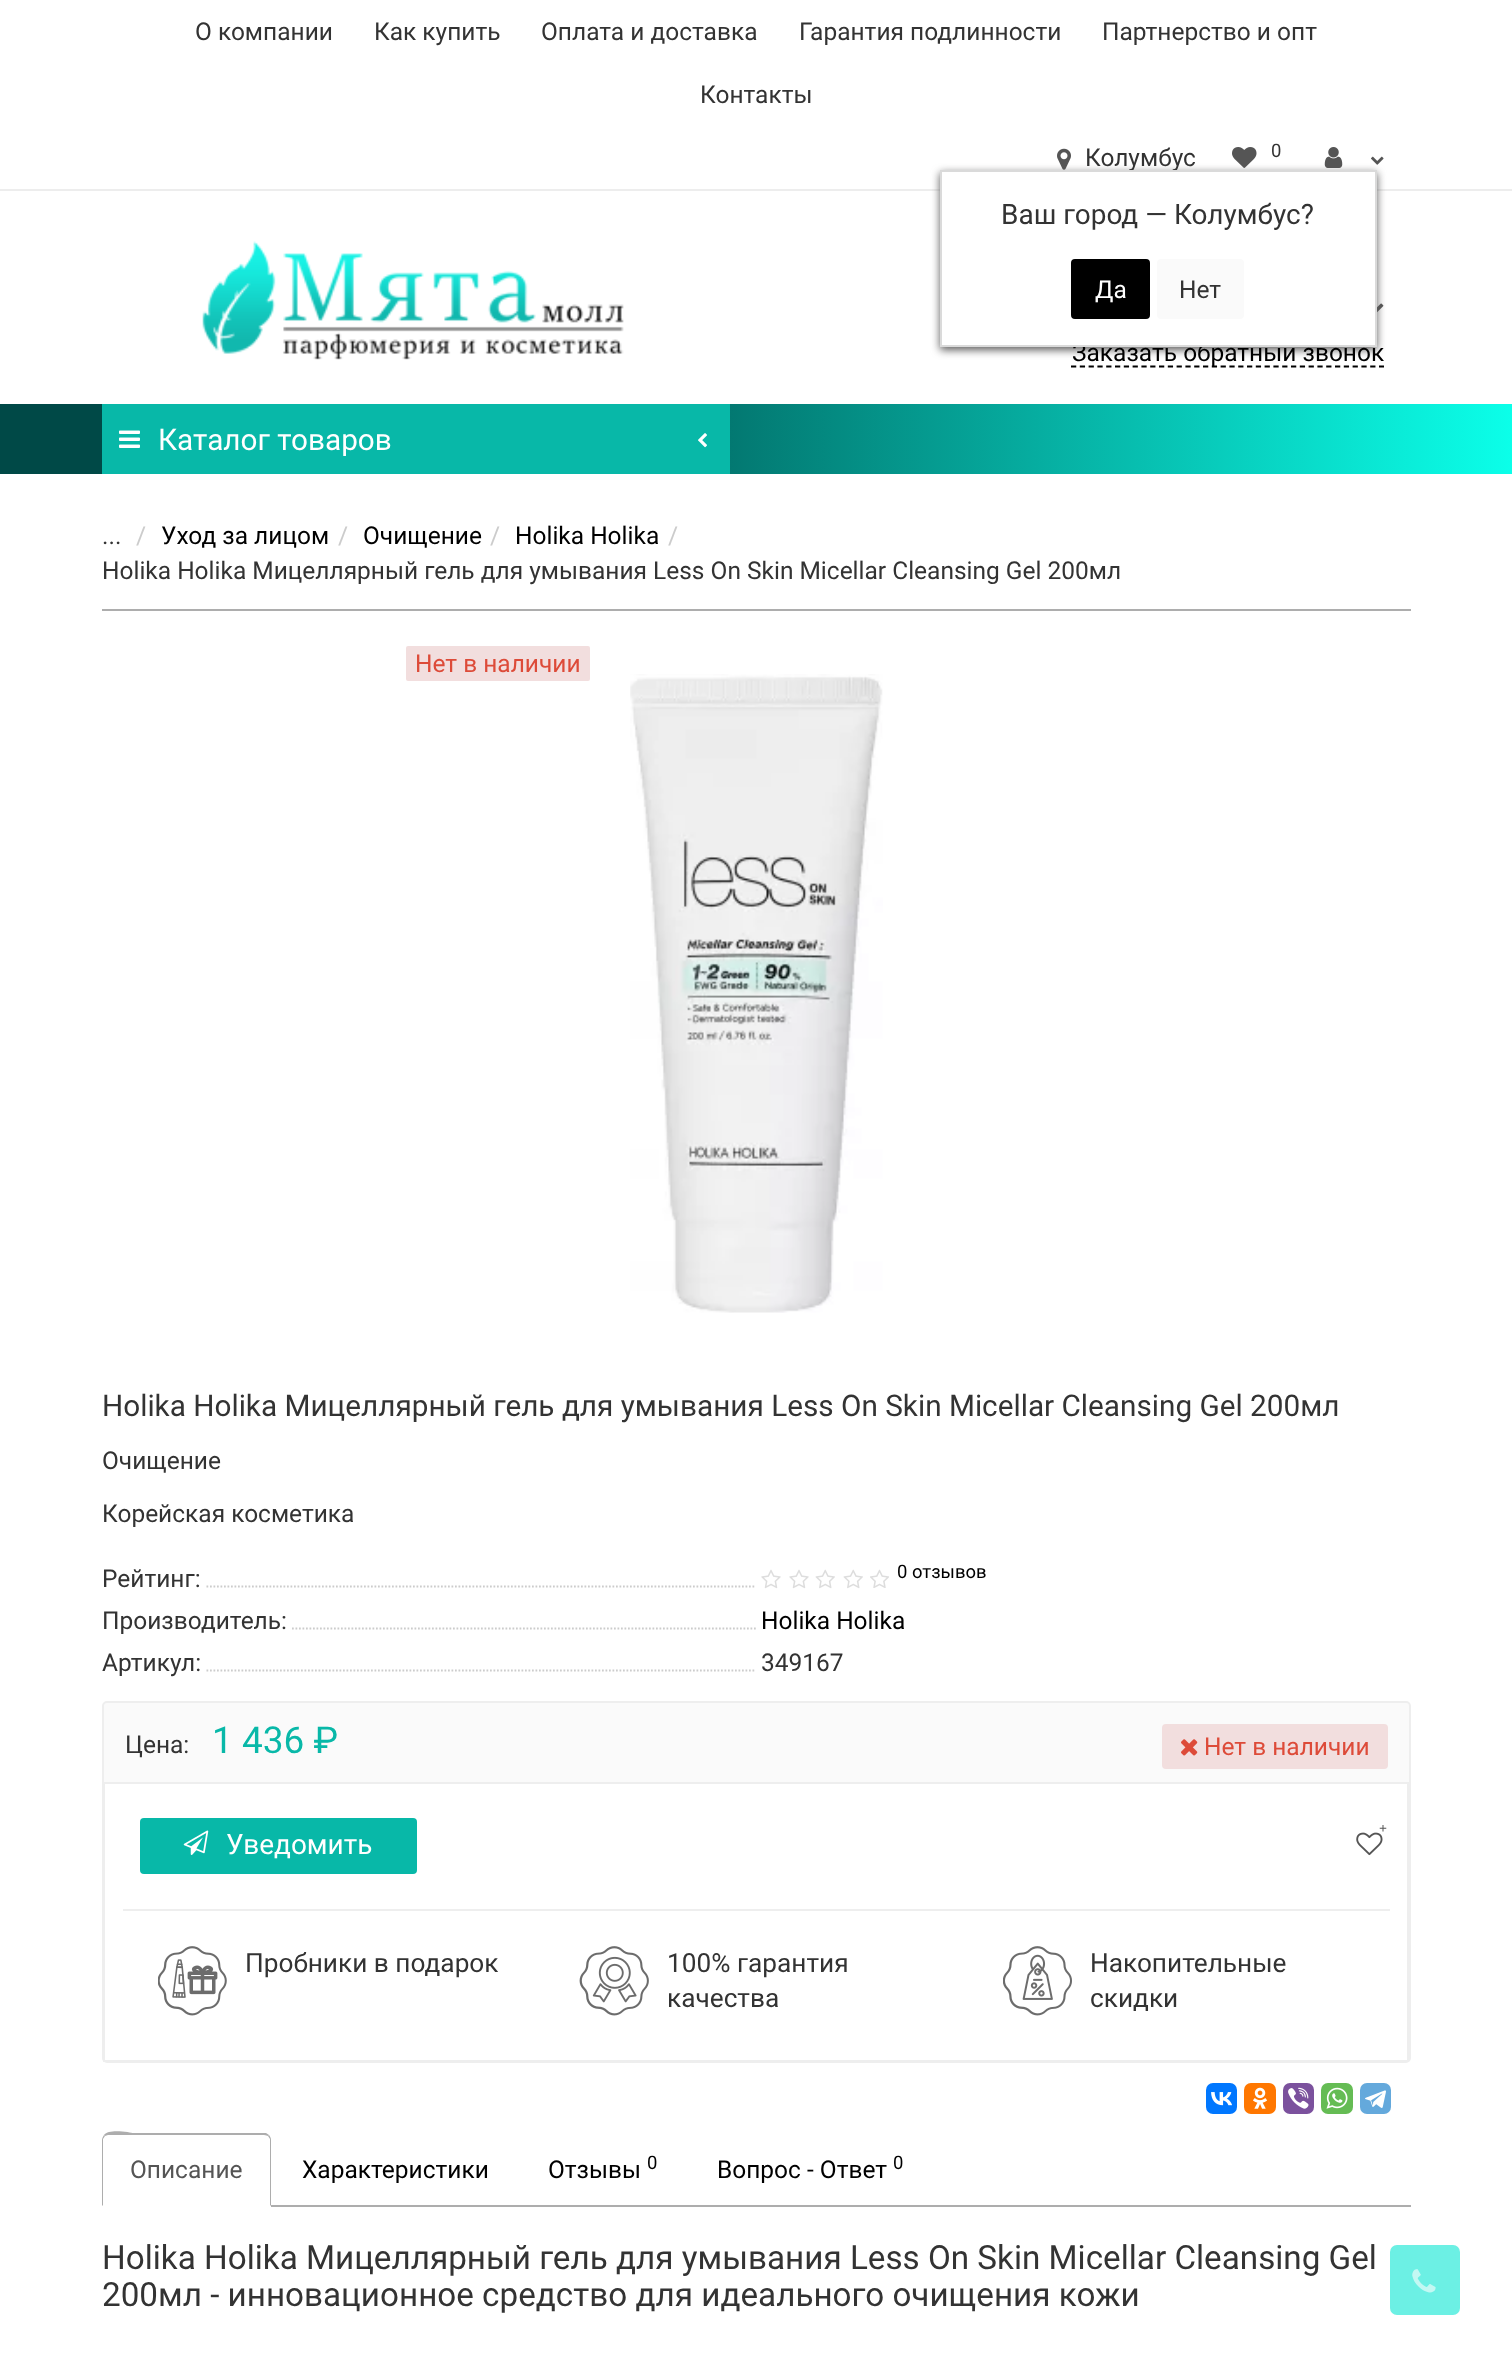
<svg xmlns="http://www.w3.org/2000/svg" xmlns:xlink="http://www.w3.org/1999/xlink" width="1512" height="2367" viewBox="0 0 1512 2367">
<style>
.cls-1{font:24.5px Roboto;fill:#333333}
.cls-2{font:18.5px Roboto;fill:#333333}
.cls-3{font:24.5px Roboto;fill:#000000}
.cls-4{font:24.5px Roboto;fill:#ffffff}
.cls-5{font:28px Roboto;fill:#333333}
.cls-6{font:29.75px Roboto;fill:#ffffff}
.cls-7{font:24.5px Roboto;fill:#cccccc}
.cls-8{font:24.5px Roboto;fill:#dd4b39}
.cls-9{font:29.75px Roboto;fill:#333333}
.cls-10{font:18.5px Roboto;fill:#000000}
.cls-11{font:37px Roboto;fill:#08b8a8}
.cls-12{font:bold 14px Liberation Serif;fill:#555555}
.cls-13{font:28px Roboto;fill:#ffffff}
.cls-14{font:26.25px Roboto;fill:#333333}
.cls-15{font:24.5px Roboto;fill:#555555}
.cls-16{font:33.25px Roboto;fill:#333333}
</style>
<defs>
<linearGradient id="g1" gradientUnits="userSpaceOnUse" x1="0" y1="439" x2="1512" y2="439"><stop offset="0.3" stop-color="#004947"/><stop offset="1" stop-color="#0bffe9"/></linearGradient>
<clipPath id="clip1"><rect x="102" y="1558" width="654" height="42"/></clipPath>
<clipPath id="clip2"><rect x="102" y="1600" width="654" height="42"/></clipPath>
<clipPath id="clip3"><rect x="102" y="1642" width="654" height="42"/></clipPath>
</defs>
<rect width="100%" height="100%" fill="#ffffff"/>
<rect fill="#ededed" x="0" y="189" width="1512" height="2"/>
<image xlink:href="image0.png" x="1232" y="147" width="25" height="21"/>
<image xlink:href="image1.png" x="1057" y="148" width="14" height="22"/>
<image xlink:href="image2.png" x="1324" y="147" width="19" height="21"/>
<image xlink:href="image3.png" x="1371" y="156" width="13" height="9"/>
<image xlink:href="image5.png" x="1377" y="303" width="7" height="10"/>
<rect fill="#5b5a5a" filter="blur(4.5px)" x="940" y="173" width="437" height="177"/>
<image xlink:href="image4.png" x="202" y="241" width="422" height="119"/>
<path fill="none" stroke="#000000" stroke-width="1.8" stroke-dasharray="5.25 3.55" d="M1071 366.5H1384"/>
<rect fill="url(#g1)" x="0" y="404" width="1512" height="70"/>
<rect fill="#08b8a8" x="102" y="404" width="628" height="70"/>
<image xlink:href="image6.png" x="119" y="430" width="21" height="18"/>
<image xlink:href="image7.png" x="698" y="433" width="9" height="15"/>
<rect fill="#adadad" x="102" y="609" width="1309" height="2"/>
<rect fill="#f2dede" x="406" y="646" width="184" height="35" rx="2"/>
<image xlink:href="image8.png" x="630" y="674" width="253" height="639"/>
<g clip-path="url(#clip1)">
<path fill="none" stroke="#cccccc" stroke-width="1.8" stroke-dasharray="1.75 1.75" d="M206.5 1586.5H859"/>
</g>
<image xlink:href="image9.png" x="761" y="1569" width="20" height="20"/>
<image xlink:href="image9.png" x="789" y="1569" width="20" height="20"/>
<image xlink:href="image10.png" x="815" y="1569" width="20" height="20"/>
<image xlink:href="image10.png" x="843" y="1569" width="20" height="20"/>
<image xlink:href="image11.png" x="870" y="1569" width="19" height="19"/>
<g clip-path="url(#clip2)">
<path fill="none" stroke="#cccccc" stroke-width="1.8" stroke-dasharray="1.75 1.75" d="M292 1628.5H947"/>
</g>
<g clip-path="url(#clip3)">
<path fill="none" stroke="#cccccc" stroke-width="1.8" stroke-dasharray="1.75 1.75" d="M206.5 1670.5H861"/>
</g>
<rect fill="#fafafa" stroke="#eeeeee" stroke-width="2" x="103" y="1702" width="1307" height="360" rx="4"/>
<rect fill="#f2dede" x="1162" y="1724" width="226" height="45" rx="4"/>
<image xlink:href="image12.png" x="1181" y="1739" width="17" height="17"/>
<rect fill="#ffffff" stroke="#eeeeee" stroke-width="2" x="104" y="1783" width="1304" height="278"/>
<image xlink:href="image13.png" x="1356" y="1832" width="27" height="24"/>
<rect fill="#08b8a8" x="140" y="1818" width="277" height="56" rx="4"/>
<image xlink:href="image14.png" x="183" y="1830" width="26" height="25"/>
<rect fill="#eeeeee" x="123" y="1909" width="1267" height="2"/>
<image xlink:href="image15.png" x="158" y="1946" width="69" height="70"/>
<image xlink:href="image16.png" x="579" y="1946" width="70" height="70"/>
<image xlink:href="image17.png" x="1003" y="1946" width="69" height="70"/>
<rect fill="#0077ff" x="1206" y="2083" width="31" height="31" rx="7"/>
<image xlink:href="image18.png" x="1211" y="2092" width="21" height="14"/>
<rect fill="#ff7700" x="1244" y="2083" width="32" height="31" rx="7"/>
<image xlink:href="image19.png" x="1253" y="2087" width="14" height="22"/>
<rect fill="#7b519d" x="1283" y="2083" width="31" height="31" rx="7"/>
<image xlink:href="image20.png" x="1288" y="2087" width="21" height="22"/>
<rect fill="#65bc54" x="1321" y="2083" width="32" height="31" rx="7"/>
<image xlink:href="image21.png" x="1326" y="2087" width="22" height="22"/>
<rect fill="#64a9dc" x="1360" y="2083" width="31" height="31" rx="7"/>
<image xlink:href="image22.png" x="1365" y="2090" width="21" height="18"/>
<rect fill="#adadad" x="271" y="2205" width="1140" height="2"/>
<path fill="#adadad" d="M108 2135L105 2136L104 2135C109 2128 132 2133 133 2133H266L269 2135L268 2136C267 2136 266 2135 264 2135Z"/>
<path fill="#adadad" d="M269 2135C270 2136 271 2138 271 2140V2206L270 2205V2139L268 2136Z"/>
<path fill="#adadad" d="M102 2206V2140C102 2138 103 2137 104 2135L105 2136L103 2139V2205Z"/>
<rect fill="#6cf0e4" x="1390" y="2245" width="70" height="70" rx="7"/>
<image xlink:href="image23.png" x="1412" y="2269" width="24" height="24"/>
<text class="cls-1" x="195" y="40">О компании</text>
<text class="cls-1" x="374" y="40">Как купить</text>
<text class="cls-1" x="541" y="40">Оплата и доставка</text>
<text class="cls-1" x="799" y="40">Гарантия подлинности</text>
<text class="cls-1" x="1102" y="40">Партнерство и опт</text>
<text class="cls-1" x="700" y="103">Контакты</text>
<text class="cls-2" x="1271" y="157">0</text>
<text class="cls-1" x="1085" y="166">Колумбус</text>
<text class="cls-3" x="1072" y="361">Заказать обратный звонок</text>
<rect fill="#ffffff" stroke="#dadada" stroke-width="2" x="941" y="171" width="435" height="175"/>
<rect fill="#fafafa" x="1157" y="259" width="87" height="60" rx="4"/>
<text class="cls-1" x="1179" y="298">Нет</text>
<rect fill="#000000" stroke="#000000" stroke-width="2" x="1072" y="260" width="77" height="58" rx="3"/>
<text class="cls-4" x="1095" y="298">Да</text>
<text class="cls-5" x="1001" y="224">Ваш город — Колумбус?</text>
<text class="cls-6" x="158" y="450">Каталог товаров</text>
<text class="cls-3" x="515" y="544">Holika Holika</text>
<text class="cls-7" x="668" y="544">/</text>
<text class="cls-1" x="102" y="579">Holika Holika Мицеллярный гель для умывания Less On Skin Micellar Cleansing Gel 200мл</text>
<text class="cls-1" x="102" y="544">...</text>
<text class="cls-7" x="136" y="544">/</text>
<text class="cls-3" x="161" y="544">Уход за лицом</text>
<text class="cls-7" x="338" y="544">/</text>
<text class="cls-3" x="363" y="544">Очищение</text>
<text class="cls-7" x="490" y="544">/</text>
<text class="cls-8" x="415" y="672">Нет в наличии</text>
<text class="cls-9" x="102" y="1416">Holika Holika Мицеллярный гель для умывания Less On Skin Micellar Cleansing Gel 200мл</text>
<text class="cls-1" x="102" y="1469">Очищение</text>
<text class="cls-1" x="102" y="1522">Корейская косметика</text>
<text class="cls-1" x="102" y="1587">Рейтинг:</text>
<text class="cls-10" x="897" y="1578">0 отзывов</text>
<text class="cls-1" x="102" y="1629">Производитель:</text>
<text class="cls-3" x="761" y="1629">Holika Holika</text>
<text class="cls-1" x="102" y="1671">Артикул:</text>
<text class="cls-1" x="761" y="1671">349167</text>
<text class="cls-1" x="125" y="1753">Цена:</text>
<text class="cls-11" x="212" y="1753">1 436 ₽</text>
<text class="cls-8" x="1204" y="1755">Нет в наличии</text>
<text class="cls-12" x="1379" y="1833">+</text>
<text class="cls-13" x="226" y="1854">Уведомить</text>
<text class="cls-14" x="245" y="1972">Пробники в подарок</text>
<text class="cls-14"><tspan x="667" y="1972">100% гарантия</tspan><tspan x="667" y="2007">качества</tspan></text>
<text class="cls-14"><tspan x="1090" y="1972">Накопительные</tspan><tspan x="1090" y="2007">скидки</tspan></text>
<text class="cls-15" x="130" y="2178">Описание</text>
<text class="cls-3" x="302" y="2178">Характеристики</text>
<text class="cls-3" x="548" y="2178">Отзывы</text>
<text class="cls-10" x="647" y="2169">0</text>
<text class="cls-3" x="717" y="2178">Вопрос - Ответ</text>
<text class="cls-10" x="893" y="2169">0</text>
<text class="cls-16"><tspan x="102" y="2269">Holika Holika Мицеллярный гель для умывания Less On Skin Micellar Cleansing Gel</tspan><tspan x="102" y="2306">200мл - инновационное средство для идеального очищения кожи</tspan></text>
</svg>
